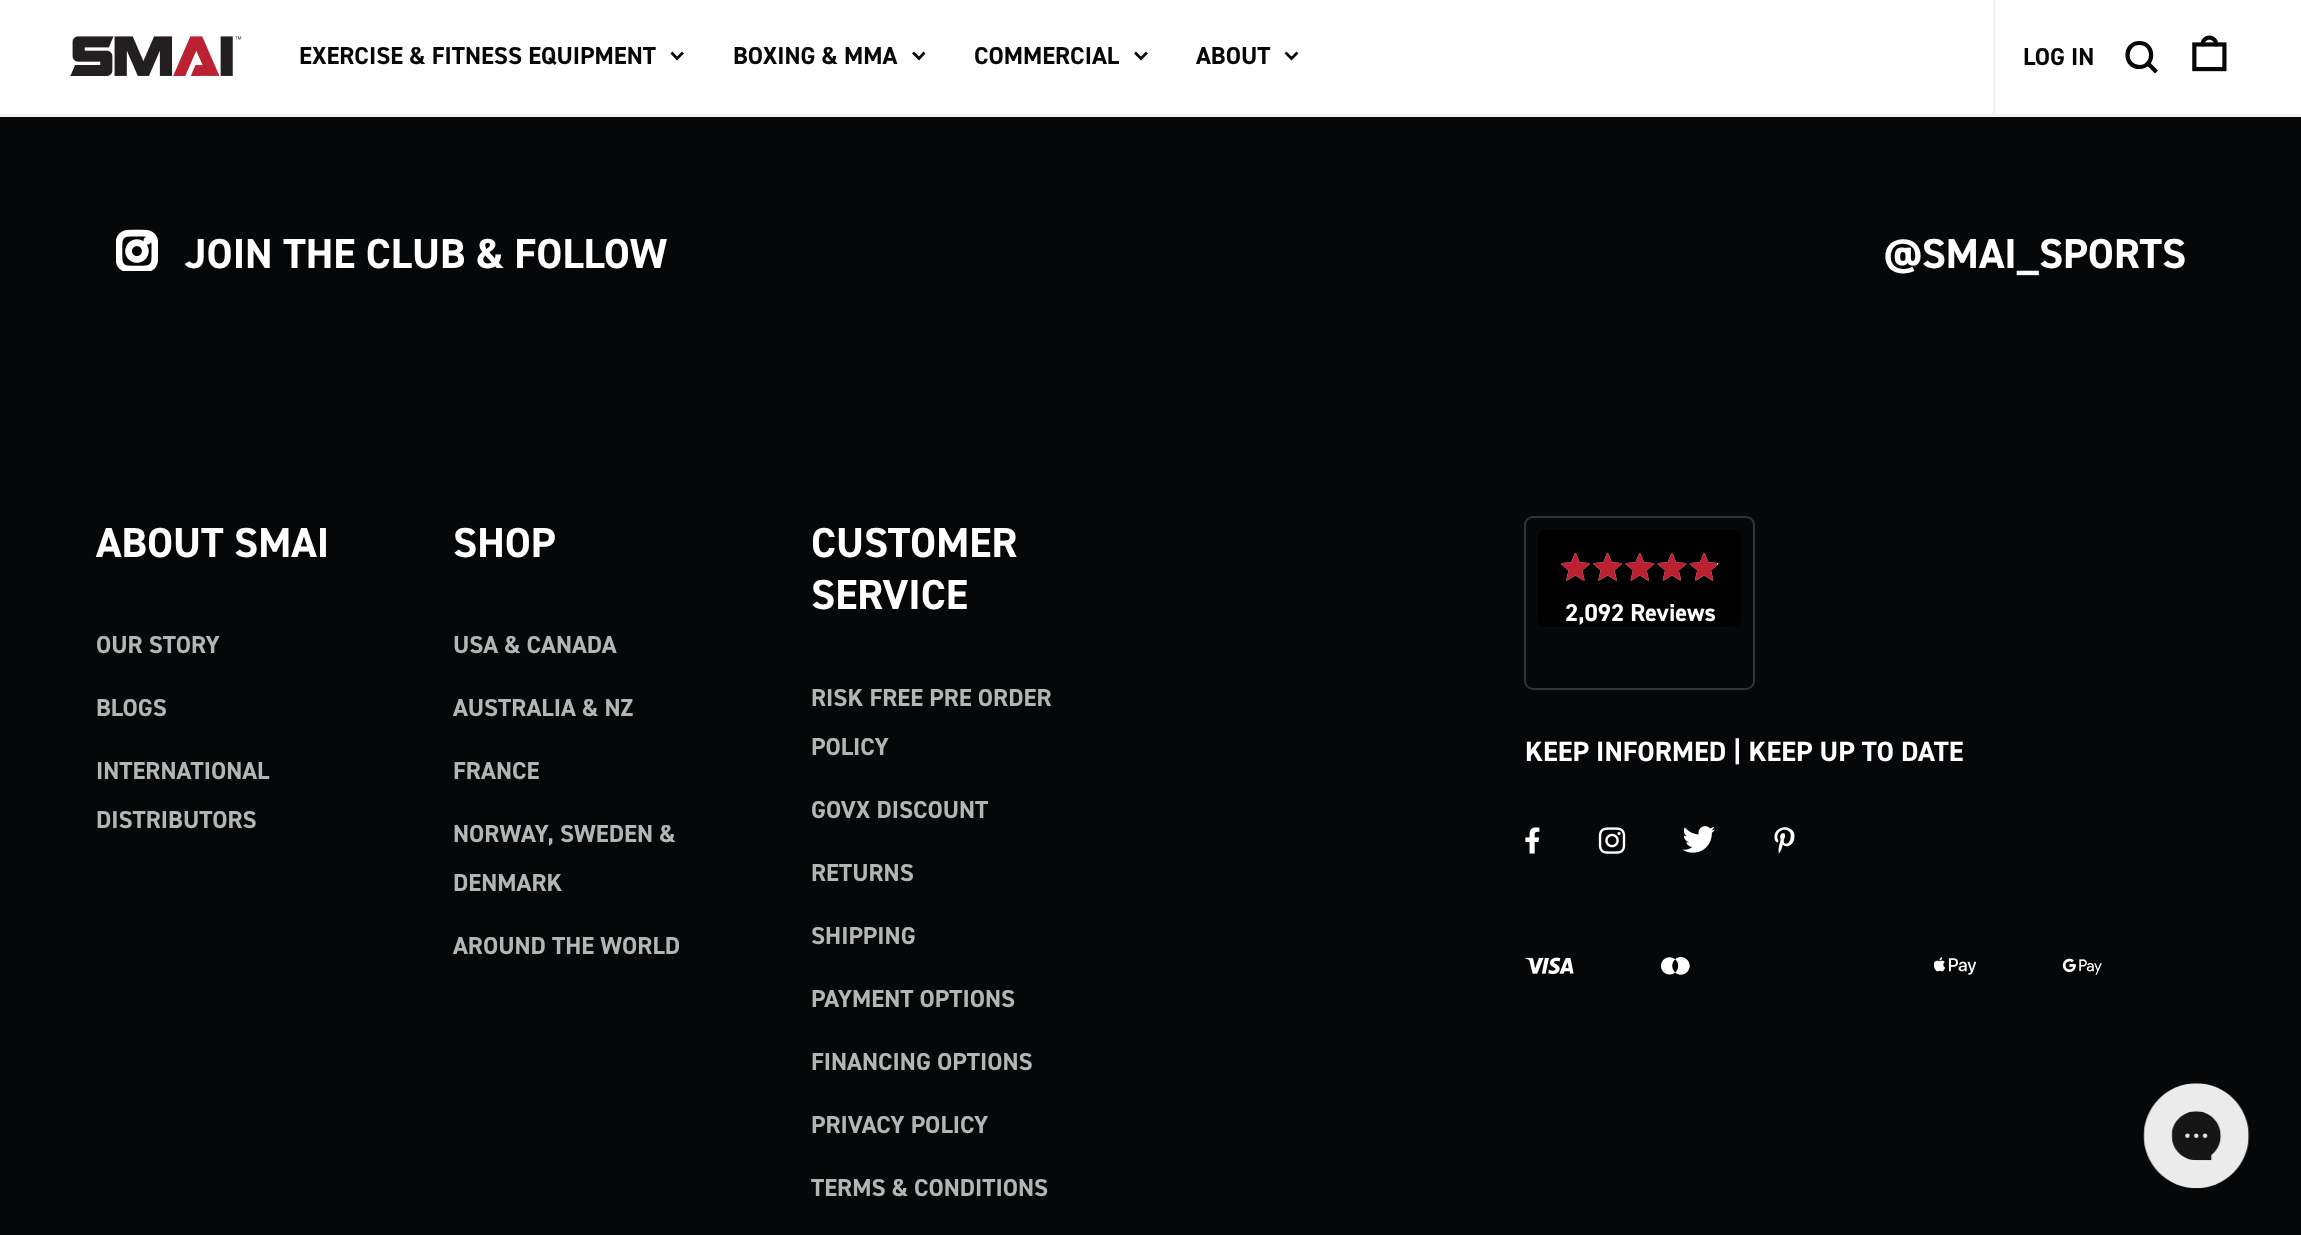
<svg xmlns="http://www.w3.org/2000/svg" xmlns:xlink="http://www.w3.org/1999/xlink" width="2301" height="1235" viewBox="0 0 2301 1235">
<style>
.cls-1{font:bold 24.5px 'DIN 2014';fill:#060709}
.cls-2{font:bold 42px 'DIN 2014';fill:#ffffff}
.cls-3{font:bold 24.5px 'DIN 2014';fill:#b4b5b5}
.cls-4{font:bold 24.5px 'DIN 2014';fill:#ffffff}
.cls-5{font:bold 28px 'DIN 2014';fill:#ffffff}
</style>
<rect width="100%" height="100%" fill="#060709"/>
<rect fill="#ffffff" x="0" y="0" width="2301" height="114"/>
<rect fill="#f3f3f3" x="0" y="114" width="2301" height="3"/>
<image xlink:href="image0.png" x="70" y="36" width="172" height="40"/>
<path fill="none" stroke="#060709" stroke-width="2.7" d="M683 52.5L677 58.5L671.5 52.5"/>
<path fill="none" stroke="#060709" stroke-width="2.7" d="M924.5 52.5L919 58.5L913 52.5"/>
<path fill="none" stroke="#060709" stroke-width="2.7" d="M1147 52.5L1141 58.5L1135 52.5"/>
<path fill="none" stroke="#060709" stroke-width="2.7" d="M1297.5 52.5L1291.5 58.5L1285.5 52.5"/>
<rect fill="#f2f2f2" x="1993" y="0" width="2" height="114"/>
<path fill="none" stroke="#060709" stroke-width="4.2" stroke-linecap="round" stroke-linejoin="round" d="M2139.5 67C2155 67 2155 43 2139.5 43C2123.5 43 2123.5 67 2139.5 67Z"/>
<path fill="none" stroke="#060709" stroke-width="4.2" stroke-linecap="square" stroke-linejoin="round" d="M2148 63.5L2155 70.5"/>
<image xlink:href="image1.png" x="2192" y="35" width="35" height="37"/>
<image xlink:href="image2.png" x="116" y="229" width="42" height="42"/>
<rect fill="none" stroke="#333333" stroke-width="2" x="1525" y="517" width="229" height="172" rx="8"/>
<rect fill="#000000" x="1538" y="530" width="203" height="97" rx="7"/>
<image xlink:href="image3.png" x="1561" y="553" width="158" height="28"/>
<image xlink:href="image4.png" x="1561" y="553" width="156" height="28"/>
<image xlink:href="image5.png" x="1525" y="827" width="15" height="27"/>
<image xlink:href="image6.png" x="1598" y="827" width="28" height="27"/>
<image xlink:href="image7.png" x="1682" y="826" width="33" height="27"/>
<image xlink:href="image8.png" x="1774" y="827" width="21" height="27"/>
<image xlink:href="image9.png" x="1524" y="957" width="50" height="18"/>
<image xlink:href="image10.png" x="1661" y="957" width="29" height="18"/>
<image xlink:href="image11.png" x="1934" y="957" width="42" height="18"/>
<image xlink:href="image12.png" x="2062" y="958" width="40" height="17"/>
<image xlink:href="image13.png" x="2143" y="1083" width="107" height="106"/>
<text class="cls-1" x="299" y="64">EXERCISE &amp; FITNESS EQUIPMENT</text>
<text class="cls-1" x="733" y="64">BOXING &amp; MMA</text>
<text class="cls-1" x="974" y="64">COMMERCIAL</text>
<text class="cls-1" x="1196" y="64">ABOUT</text>
<text class="cls-1" x="2023" y="65">LOG IN</text>
<text class="cls-2" x="185" y="268">JOIN THE CLUB &amp; FOLLOW</text>
<text class="cls-2" x="1884" y="268">@SMAI_SPORTS</text>
<text class="cls-2" x="96" y="557">ABOUT SMAI</text>
<text class="cls-3" x="96" y="653">OUR STORY</text>
<text class="cls-3" x="96" y="716">BLOGS</text>
<text class="cls-3" x="96" y="779">INTERNATIONAL</text>
<text class="cls-3" x="96" y="828">DISTRIBUTORS</text>
<text class="cls-2" x="453" y="557">SHOP</text>
<text class="cls-3" x="453" y="653">USA &amp; CANADA</text>
<text class="cls-3" x="453" y="716">AUSTRALIA &amp; NZ</text>
<text class="cls-3" x="453" y="779">FRANCE</text>
<text class="cls-3" x="453" y="842">NORWAY, SWEDEN &amp;</text>
<text class="cls-3" x="453" y="891">DENMARK</text>
<text class="cls-3" x="453" y="954">AROUND THE WORLD</text>
<text class="cls-2"><tspan x="811" y="557">CUSTOMER</tspan><tspan x="811" y="609">SERVICE</tspan></text>
<text class="cls-3" x="811" y="706">RISK FREE PRE ORDER</text>
<text class="cls-3" x="811" y="755">POLICY</text>
<text class="cls-3" x="811" y="818">GOVX DISCOUNT</text>
<text class="cls-3" x="811" y="881">RETURNS</text>
<text class="cls-3" x="811" y="944">SHIPPING</text>
<text class="cls-3" x="811" y="1007">PAYMENT OPTIONS</text>
<text class="cls-3" x="811" y="1070">FINANCING OPTIONS</text>
<text class="cls-3" x="811" y="1133">PRIVACY POLICY</text>
<text class="cls-3" x="811" y="1196">TERMS &amp; CONDITIONS</text>
<text class="cls-4" x="1565" y="621">2,092 Reviews</text>
<text class="cls-5" x="1525" y="761">KEEP INFORMED | KEEP UP TO DATE</text>
</svg>
